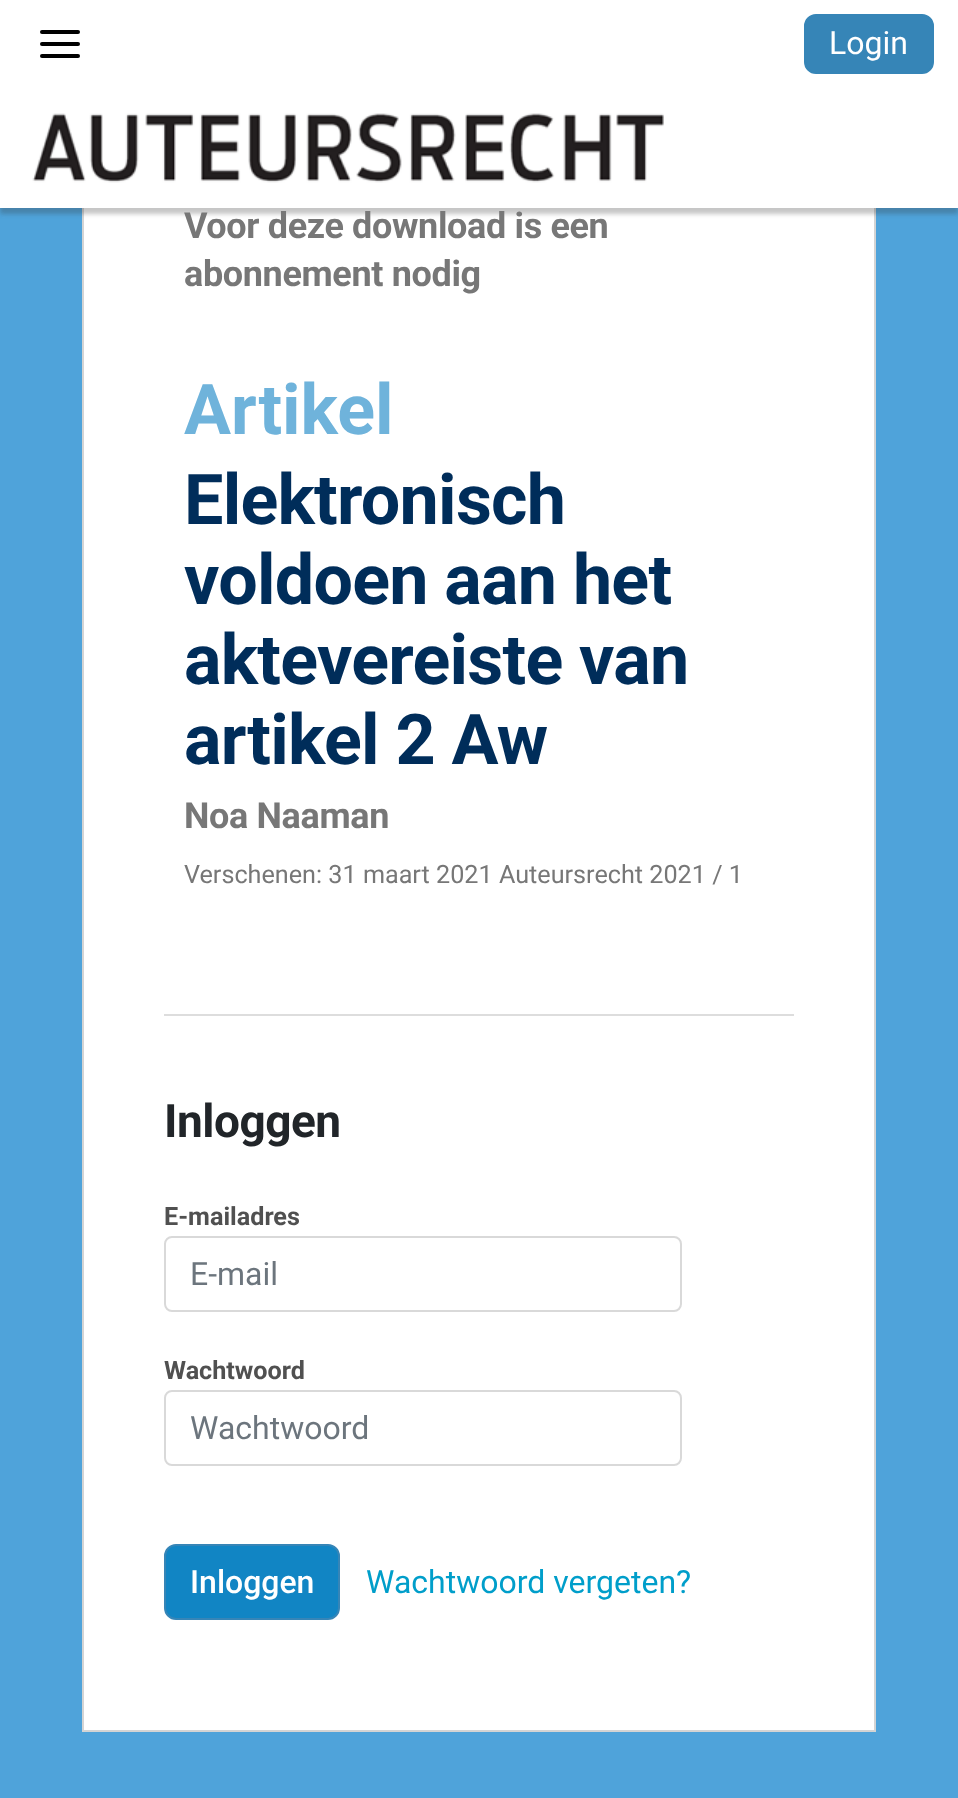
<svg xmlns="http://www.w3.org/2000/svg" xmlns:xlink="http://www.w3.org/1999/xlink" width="958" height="1798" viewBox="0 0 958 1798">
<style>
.cls-1{font:32px Roboto;fill:#ffffff}
.cls-2{font:bold 36px Roboto;letter-spacing:-0.35px;fill:#777777}
.cls-3{font:bold 70px Roboto;fill:#6fb3db}
.cls-4{font:bold 70px Roboto;letter-spacing:-0.75px;fill:#002d5a}
.cls-5{font:25.2px Roboto;fill:#777777}
.cls-6{font:bold 46px Roboto;letter-spacing:-0.5px;fill:#212529}
.cls-7{font:bold 25.2px Roboto;fill:#505050}
.cls-8{font:32px Roboto;fill:#6c757d}
.cls-9{font:500 32px Roboto;fill:#ffffff}
.cls-10{font:32px Roboto;fill:#009eca}
</style>
<rect width="100%" height="100%" fill="#4fa3da"/>
<rect fill="#ffffff" x="0" y="0" width="958" height="88"/>
<rect fill="#000000" x="40" y="30" width="40" height="4" rx="2"/>
<rect fill="#000000" x="40" y="42" width="40" height="4" rx="2"/>
<rect fill="#000000" x="40" y="54" width="40" height="4" rx="2"/>
<rect fill="#3685b7" stroke="#3685b7" stroke-width="2" x="805" y="15" width="128" height="58" rx="11"/>
<rect fill="#ffffff" x="84" y="208" width="790" height="1522"/>
<rect fill="none" stroke="#d4d4d4" stroke-width="2" x="83" y="121" width="792" height="1610"/>
<rect fill="#323232" fill-opacity="0.28" filter="blur(2px)" x="0" y="94" width="958" height="120"/>
<rect fill="#ffffff" x="0" y="88" width="958" height="120"/>
<image xlink:href="image0.png" x="32" y="113" width="632" height="70"/>
<rect fill="#dddddd" x="164" y="1014" width="630" height="2"/>
<rect fill="none" stroke="#d9d9d9" stroke-width="2" x="165" y="1237" width="516" height="74" rx="7"/>
<rect fill="none" stroke="#d9d9d9" stroke-width="2" x="165" y="1391" width="516" height="74" rx="7"/>
<rect fill="#1185c4" stroke="#3685b7" stroke-width="2" x="165" y="1545" width="174" height="74" rx="11"/>
<text class="cls-1" x="829" y="54">Login</text>
<text class="cls-2"><tspan x="184" y="238">Voor deze download is een</tspan><tspan x="184" y="286">abonnement nodig</tspan></text>
<text class="cls-3" x="184" y="434">Artikel</text>
<text class="cls-4"><tspan x="184" y="524">Elektronisch</tspan><tspan x="184" y="604">voldoen aan het</tspan><tspan x="184" y="684">aktevereiste van</tspan><tspan x="184" y="764">artikel 2 Aw</tspan></text>
<text class="cls-2" x="184" y="828">Noa Naaman</text>
<text class="cls-5" x="184" y="883">Verschenen: 31 maart 2021 Auteursrecht 2021 / 1</text>
<text class="cls-6" x="164" y="1137">Inloggen</text>
<text class="cls-7" x="164" y="1225">E-mailadres</text>
<text class="cls-8" x="190" y="1285">E-mail</text>
<text class="cls-7" x="164" y="1379">Wachtwoord</text>
<text class="cls-8" x="190" y="1439">Wachtwoord</text>
<text class="cls-9" x="190" y="1593">Inloggen</text>
<text class="cls-10" x="366" y="1593">Wachtwoord vergeten?</text>
</svg>
